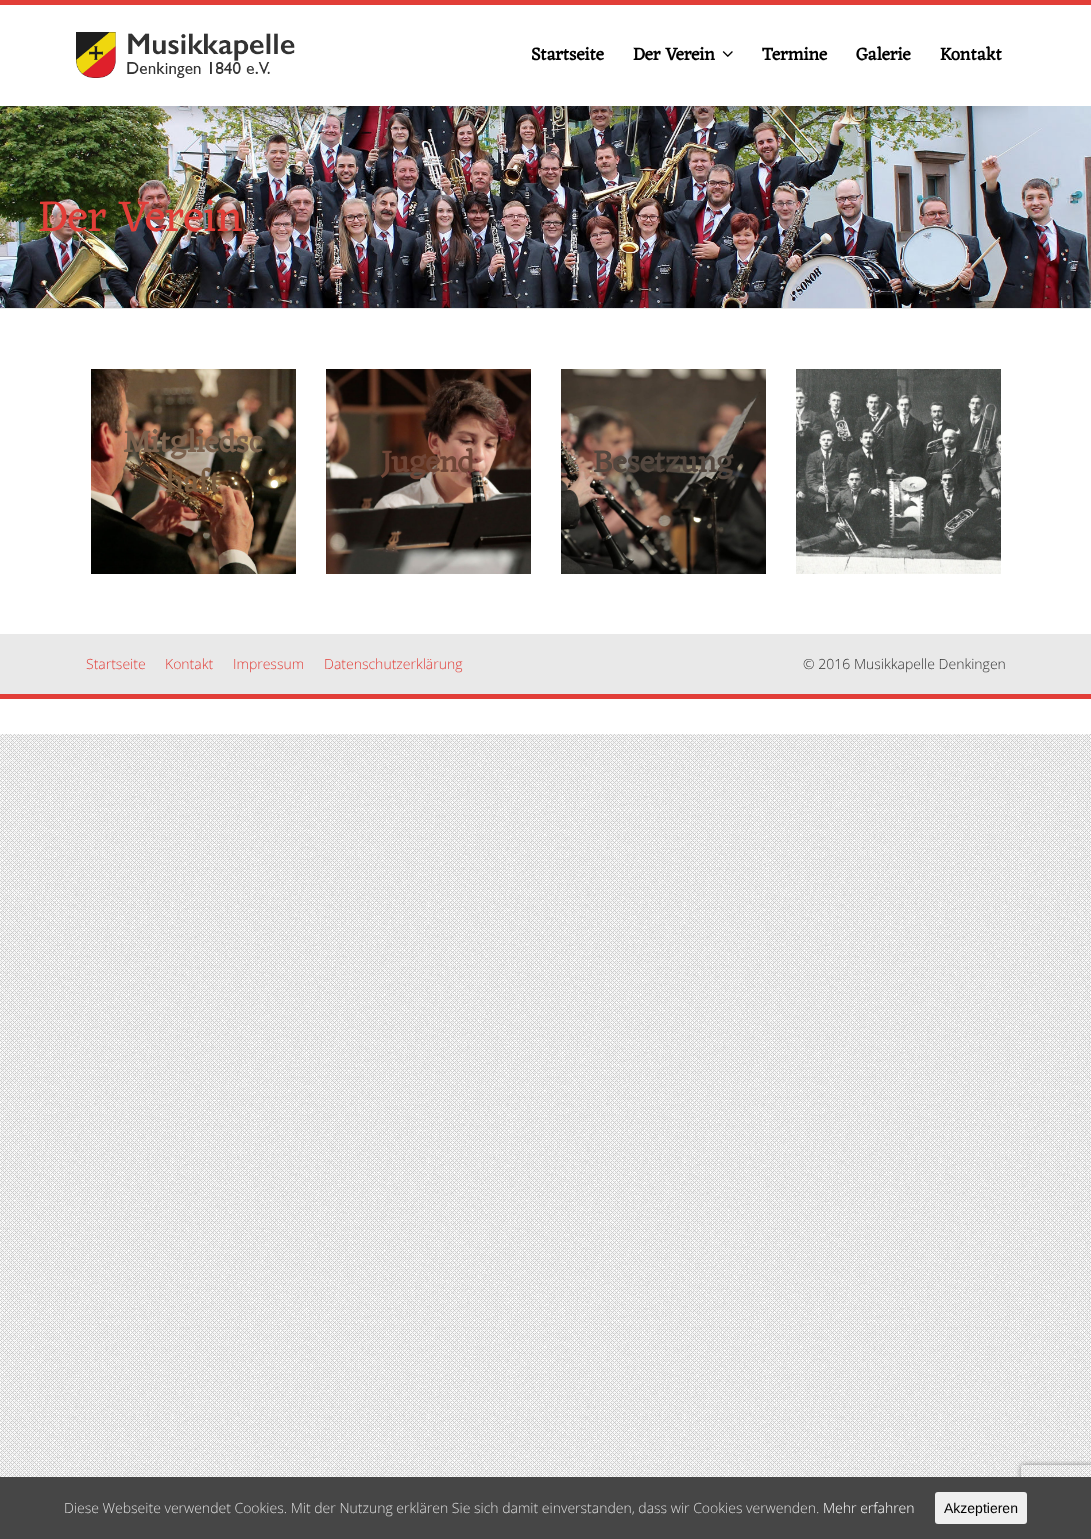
<svg xmlns="http://www.w3.org/2000/svg" xmlns:xlink="http://www.w3.org/1999/xlink" width="1091" height="1539" viewBox="0 0 1091 1539">
<style>
.cls-1{font:bold 18px Eczar;fill:#000000}
.cls-2{font:45px Eczar;fill:#e23e38}
.cls-3{font:bold 31.5px Eczar;fill:#7c624e}
.cls-4{font:bold 31.5px Eczar;fill:#785b40}
.cls-5{font:bold 31.5px Eczar;fill:#6f4637}
.cls-6{font:bold 31.5px Eczar;fill:#53473f}
.cls-7{font:300 14px Open Sans;fill:#e23e38}
.cls-8{font:300 14px Open Sans;fill:#323232}
.cls-9{font:300 14px Open Sans;fill:#dddddd}
.cls-10{font:300 14px Open Sans;fill:#ffffff}
.cls-11{font:14px Liberation Sans;fill:#000000}
</style>
<defs>
<clipPath id="clip1"><path d="M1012 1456H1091V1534H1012ZM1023 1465H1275C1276 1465 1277 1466 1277 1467V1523C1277 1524 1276 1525 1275 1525H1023C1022 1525 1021 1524 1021 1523V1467C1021 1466 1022 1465 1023 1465Z" clip-rule="evenodd"/></clipPath>
</defs>
<rect width="100%" height="100%" fill="#ffffff"/>
<image xlink:href="image0.png" x="0" y="734" width="1091" height="743"/>
<rect fill="#e23e38" x="0" y="0" width="1091" height="5"/>
<image xlink:href="image1.png" x="76" y="32" width="219" height="46"/>
<image xlink:href="image2.png" x="722" y="51" width="11" height="6"/>
<image xlink:href="image4.png" x="0" y="106" width="1091" height="202"/>
<image xlink:href="image3.png" x="66" y="106" width="962" height="19"/>
<rect fill="#e9e9e9" x="0" y="308" width="1091" height="1"/>
<image xlink:href="image5.png" x="91" y="369" width="205" height="205"/>
<image xlink:href="image6.png" x="326" y="369" width="205" height="205"/>
<image xlink:href="image7.png" x="561" y="369" width="205" height="205"/>
<image xlink:href="image8.png" x="796" y="369" width="205" height="205"/>
<rect fill="#e9e9e9" x="0" y="634" width="1091" height="60"/>
<rect fill="#e23e38" x="0" y="694" width="1091" height="5"/>
<g clip-path="url(#clip1)">
<rect fill="#808080" filter="blur(2.5px)" x="1021" y="1465" width="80" height="60" rx="2"/>
</g>
<rect fill="#464646" x="0" y="1477" width="1091" height="62"/>
<rect fill="#efefef" x="935" y="1492" width="92" height="32" rx="3"/>
<text class="cls-1" x="531" y="60">Startseite</text>
<text class="cls-1" x="633" y="60">Der Verein</text>
<text class="cls-1" x="762" y="60">Termine</text>
<text class="cls-1" x="856" y="60">Galerie</text>
<text class="cls-1" x="940" y="60">Kontakt</text>
<text class="cls-2" x="38" y="231">Der Verein</text>
<text class="cls-3" x="123" y="452">Mitgliedsc</text>
<text class="cls-4" x="165" y="492">haft</text>
<text class="cls-5" x="381" y="472">Jugend</text>
<text class="cls-6" x="593" y="472">Besetzung</text>
<text class="cls-7" x="86" y="669">Startseite</text>
<text class="cls-7" x="165" y="669">Kontakt</text>
<text class="cls-7" x="233" y="669">Impressum</text>
<text class="cls-7" x="324" y="669">Datenschutzerklärung</text>
<text class="cls-8" x="803" y="669">© 2016 Musikkapelle Denkingen</text>
<text class="cls-9" x="64" y="1513">Diese Webseite verwendet Cookies. Mit der Nutzung erklären Sie sich damit einverstanden, dass wir Cookies verwenden.</text>
<text class="cls-10" x="823" y="1513">Mehr erfahren</text>
<text class="cls-11" x="944" y="1513">Akzeptieren</text>
</svg>
